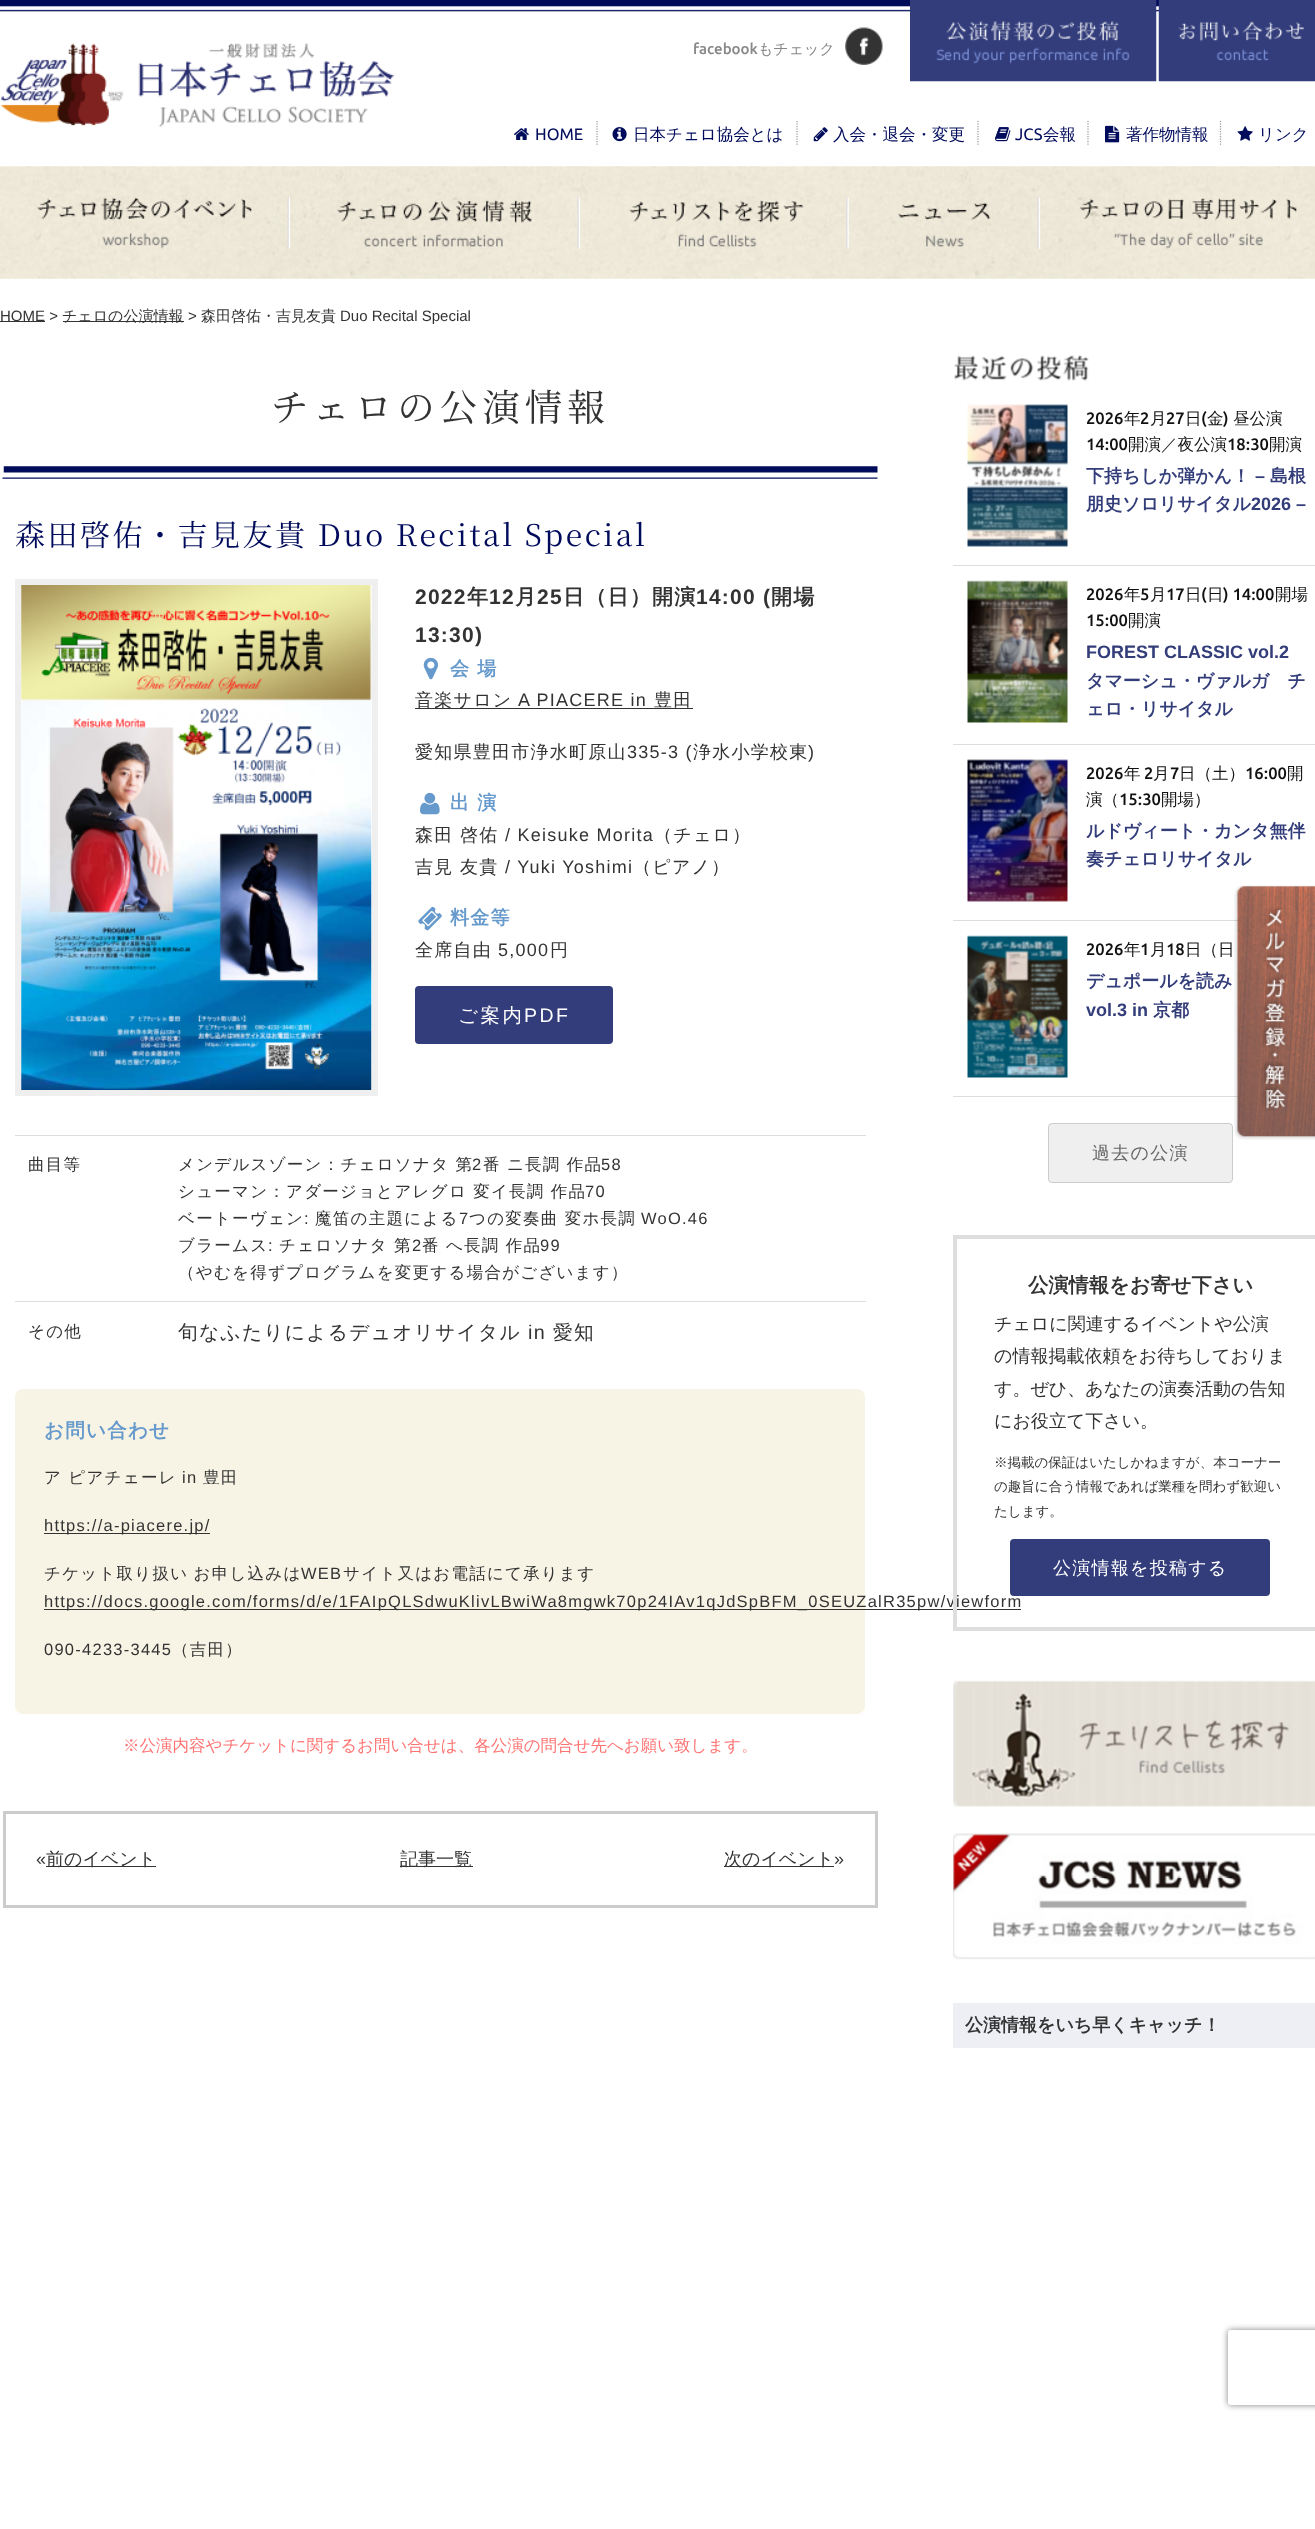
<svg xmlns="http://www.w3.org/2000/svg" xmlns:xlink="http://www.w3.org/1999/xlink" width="1315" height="2529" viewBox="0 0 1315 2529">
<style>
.cls-1{font:500 15px Ubuntu;fill:#888888}
.cls-2{font:500 15px WenQuanYi Zen Hei;fill:#888888}
.cls-3{font:16.5px Ubuntu;fill:#000b5b}
.cls-4{font:500 16.5px WenQuanYi Zen Hei;fill:#000b5b}
.cls-5{font:15px Liberation Sans;fill:#333333}
.cls-6{font:500 15px WenQuanYi Zen Hei;fill:#333333}
.cls-7{font:37.5px Noto Serif JP;letter-spacing:5px;fill:#333333}
.cls-8{font:30px Noto Serif JP;letter-spacing:2.5px;fill:#000b5b}
.cls-9{font:bold 21px Liberation Sans;letter-spacing:1.25px;fill:#333333}
.cls-10{font:bold 21px WenQuanYi Zen Hei;letter-spacing:1.25px;fill:#333333}
.cls-11{font:bold 19px WenQuanYi Zen Hei;letter-spacing:1.25px;fill:#6699cc}
.cls-12{font:500 18px WenQuanYi Zen Hei;letter-spacing:1.25px;fill:#333333}
.cls-13{font:18px Liberation Sans;letter-spacing:1.25px;fill:#333333}
.cls-14{font:500 19.5px WenQuanYi Zen Hei;letter-spacing:2.5px;fill:#ffffff}
.cls-15{font:19.5px Liberation Sans;letter-spacing:2.5px;fill:#ffffff}
.cls-16{font:500 16.5px WenQuanYi Zen Hei;letter-spacing:1.25px;fill:#333333}
.cls-17{font:16.5px Liberation Sans;letter-spacing:1.25px;fill:#333333}
.cls-18{font:500 19.75px WenQuanYi Zen Hei;letter-spacing:1.25px;fill:#333333}
.cls-19{font:19.75px Liberation Sans;letter-spacing:1.25px;fill:#333333}
.cls-20{font:bold 19.5px WenQuanYi Zen Hei;letter-spacing:1.25px;fill:#6699cc}
.cls-21{font:500 16.5px WenQuanYi Zen Hei;fill:#ff7373}
.cls-22{font:18px Liberation Sans;fill:#333333}
.cls-23{font:500 18px WenQuanYi Zen Hei;fill:#333333}
.cls-24{font:500 16.5px Ubuntu;fill:#111111}
.cls-25{font:500 16.5px WenQuanYi Zen Hei;fill:#111111}
.cls-26{font:bold 18px WenQuanYi Zen Hei;fill:#333d7a}
.cls-27{font:bold 18px Liberation Sans;fill:#333d7a}
.cls-28{font:500 18px WenQuanYi Zen Hei;letter-spacing:1.25px;fill:#666666}
.cls-29{font:bold 20.25px WenQuanYi Zen Hei;fill:#333333}
.cls-30{font:500 13.5px WenQuanYi Zen Hei;fill:#333333}
.cls-31{font:500 18px WenQuanYi Zen Hei;letter-spacing:1.25px;fill:#ffffff}
.cls-32{font:bold 18px WenQuanYi Zen Hei;fill:#333333}
</style>
<defs>
<clipPath id="clip1"><path d="M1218 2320H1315V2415H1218ZM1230.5 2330H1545.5C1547 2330 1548 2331 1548 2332.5V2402.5C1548 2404 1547 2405 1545.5 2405H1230.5C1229 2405 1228 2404 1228 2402.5V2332.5C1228 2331 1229 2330 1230.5 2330Z" clip-rule="evenodd"/></clipPath>
</defs>
<rect width="100%" height="100%" fill="#ffffff"/>
<image xlink:href="image0.png" x="0" y="0" width="1159" height="12"/>
<image xlink:href="image1.png" x="1" y="43" width="393" height="84"/>
<image xlink:href="image2.png" x="845" y="27" width="38" height="38"/>
<image xlink:href="image3.png" x="910" y="0" width="247" height="82"/>
<image xlink:href="image4.png" x="1158" y="0" width="157" height="82"/>
<path fill="none" stroke="#999999" stroke-width="1.2" stroke-dasharray="1.25 1.25" d="M597 121V146"/>
<image xlink:href="image5.png" x="514" y="128" width="15" height="12"/>
<path fill="none" stroke="#999999" stroke-width="1.2" stroke-dasharray="1.25 1.25" d="M797 121V146"/>
<image xlink:href="image6.png" x="612" y="127" width="15" height="15"/>
<path fill="none" stroke="#999999" stroke-width="1.2" stroke-dasharray="1.25 1.25" d="M978 121V146"/>
<image xlink:href="image7.png" x="813" y="127" width="15" height="15"/>
<path fill="none" stroke="#999999" stroke-width="1.2" stroke-dasharray="1.25 1.25" d="M1088 121V146"/>
<image xlink:href="image8.png" x="995" y="127" width="16" height="15"/>
<path fill="none" stroke="#999999" stroke-width="1.2" stroke-dasharray="1.25 1.25" d="M1220.5 121V146"/>
<image xlink:href="image9.png" x="1105" y="125" width="15" height="18"/>
<image xlink:href="image10.png" x="1237" y="126" width="16" height="15"/>
<image xlink:href="image11.png" x="0" y="166" width="1315" height="113"/>
<image xlink:href="image12.png" x="37" y="197" width="215" height="52"/>
<image xlink:href="image13.png" x="287" y="197" width="246" height="52"/>
<image xlink:href="image14.png" x="577" y="197" width="227" height="52"/>
<image xlink:href="image15.png" x="846" y="197" width="145" height="52"/>
<image xlink:href="image16.png" x="1037" y="197" width="260" height="52"/>
<rect fill="#333333" x="0" y="321" width="45" height="1"/>
<rect fill="#333333" x="63" y="321" width="121" height="1"/>
<image xlink:href="image17.png" x="2" y="466" width="876" height="13"/>
<rect fill="none" stroke="#efefef" stroke-width="6" x="18" y="582" width="357" height="511"/>
<image xlink:href="image18.png" x="21" y="585" width="351" height="505"/>
<image xlink:href="image19.png" x="423" y="657" width="15" height="23"/>
<rect fill="#333333" x="415" y="708" width="278" height="1"/>
<image xlink:href="image20.png" x="420" y="792" width="20" height="23"/>
<image xlink:href="image21.png" x="418" y="906" width="24" height="25"/>
<rect fill="#333d7b" x="415" y="986" width="198" height="58" rx="4"/>
<rect fill="#dddddd" x="15" y="1135" width="851" height="1"/>
<rect fill="#dddddd" x="15" y="1301" width="851" height="1"/>
<rect fill="#f7f4e5" stroke="#f7f4e5" stroke-width="4" x="17" y="1391" width="846" height="321" rx="6"/>
<rect fill="#333333" x="44" y="1533" width="166" height="1"/>
<rect fill="#333333" x="44" y="1609" width="977" height="1"/>
<rect fill="none" stroke="#cccccc" stroke-width="3" x="4.5" y="1812.5" width="872" height="94"/>
<rect fill="#333333" x="46" y="1866" width="110" height="1"/>
<rect fill="#333333" x="400" y="1866" width="73" height="1"/>
<rect fill="#333333" x="724" y="1866" width="110" height="1"/>
<image xlink:href="image22.png" x="954" y="355" width="135" height="26"/>
<rect fill="#dddddd" x="953" y="565" width="362" height="1"/>
<image xlink:href="image23.png" x="967" y="404" width="101" height="143"/>
<rect fill="#dddddd" x="953" y="744" width="362" height="1"/>
<image xlink:href="image24.png" x="967" y="580" width="101" height="143"/>
<rect fill="#dddddd" x="953" y="920" width="285" height="1"/>
<image xlink:href="image25.png" x="967" y="759" width="101" height="143"/>
<rect fill="#dddddd" x="953" y="1096" width="285" height="1"/>
<image xlink:href="image26.png" x="967" y="935" width="101" height="143"/>
<rect fill="#efefef" stroke="#cccccc" x="1048.5" y="1123.5" width="184" height="59" rx="3.5"/>
<image xlink:href="image27.png" x="953" y="1680" width="362" height="127"/>
<image xlink:href="image28.png" x="953" y="1833" width="362" height="127"/>
<rect fill="#edeff4" x="953" y="2003" width="362" height="45"/>
<image xlink:href="image29.png" x="1234" y="885" width="81" height="255"/>
<g clip-path="url(#clip1)">
<rect fill="#808080" filter="blur(3px)" x="1228" y="2330" width="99" height="75" rx="2.5"/>
</g>
<text class="cls-1" x="693" y="54">facebook</text>
<text class="cls-2" x="758" y="54">もチェック</text>
<text class="cls-3" x="535" y="140">HOME</text>
<text class="cls-4" x="633" y="140">日本チェロ協会とは</text>
<text class="cls-4" x="833" y="140">入会・退会・変更</text>
<text class="cls-3" x="1015" y="140">JCS</text>
<text class="cls-4" x="1043" y="140">会報</text>
<text class="cls-4" x="1126" y="140">著作物情報</text>
<text class="cls-4" x="1258" y="140">リンク</text>
<text class="cls-5" x="0" y="321">HOME &gt;</text>
<text class="cls-6" x="62" y="321">チェロの公演情報</text>
<text class="cls-5" x="188" y="321">&gt;</text>
<text class="cls-6" x="201" y="321">森田啓佑・吉見友貴</text>
<text class="cls-5" x="340" y="321">Duo Recital Special</text>
<text class="cls-7" x="271" y="421">チェロの公演情報</text>
<text class="cls-8" x="15" y="546">森田啓佑・吉見友貴 Duo Recital Special</text>
<text class="cls-9" x="415" y="604">2022</text>
<text class="cls-10" x="467" y="604">年</text>
<text class="cls-9" x="489" y="604">12</text>
<text class="cls-10" x="515" y="604">月</text>
<text class="cls-9" x="537" y="604">25</text>
<text class="cls-10" x="563" y="604">日（日）開演</text>
<text class="cls-9" x="696" y="604">14:00 (</text>
<text class="cls-10" x="771" y="604">開場</text>
<text class="cls-9" x="415" y="642">13:30)</text>
<text class="cls-11" x="450" y="675">会 場</text>
<text class="cls-12" x="415" y="706">音楽サロン</text>
<text class="cls-13" x="518" y="706">A PIACERE in</text>
<text class="cls-12" x="654" y="706">豊田</text>
<text class="cls-12" x="415" y="758">愛知県豊田市浄水町原山</text>
<text class="cls-13" x="627" y="758">335-3 (</text>
<text class="cls-12" x="693" y="758">浄水小学校東</text>
<text class="cls-13" x="808" y="758">)</text>
<text class="cls-11" x="450" y="809">出 演</text>
<text class="cls-12" x="415" y="841">森田</text>
<text class="cls-12" x="460" y="841">啓佑</text>
<text class="cls-13" x="505" y="841">/ Keisuke Morita</text>
<text class="cls-12" x="654" y="841">（チェロ）</text>
<text class="cls-12" x="415" y="873">吉見</text>
<text class="cls-12" x="460" y="873">友貴</text>
<text class="cls-13" x="505" y="873">/ Yuki Yoshimi</text>
<text class="cls-12" x="633" y="873">（ピアノ）</text>
<text class="cls-11" x="450" y="924">料金等</text>
<text class="cls-12" x="415" y="956">全席自由</text>
<text class="cls-13" x="498" y="956">5,000</text>
<text class="cls-12" x="550" y="956">円</text>
<text class="cls-14" x="458" y="1022">ご案内</text>
<text class="cls-15" x="524" y="1022">PDF</text>
<text class="cls-16" x="28" y="1170">曲目等</text>
<text class="cls-16" x="178" y="1170">メンデルスゾーン：チェロソナタ 第</text>
<text class="cls-17" x="472" y="1170">2</text>
<text class="cls-16" x="483" y="1170">番 ニ長調 作品</text>
<text class="cls-17" x="601" y="1170">58</text>
<text class="cls-16" x="178" y="1197">シューマン：アダージョとアレグロ 変イ長調 作品</text>
<text class="cls-17" x="585" y="1197">70</text>
<text class="cls-16" x="178" y="1224">ベートーヴェン</text>
<text class="cls-17" x="304" y="1224">:</text>
<text class="cls-16" x="315" y="1224">魔笛の主題による</text>
<text class="cls-17" x="459" y="1224">7</text>
<text class="cls-16" x="469" y="1224">つの変奏曲 変ホ長調</text>
<text class="cls-17" x="641" y="1224">WoO.46</text>
<text class="cls-16" x="178" y="1251">ブラームス</text>
<text class="cls-17" x="268" y="1251">:</text>
<text class="cls-16" x="279" y="1251">チェロソナタ 第</text>
<text class="cls-17" x="412" y="1251">2</text>
<text class="cls-16" x="422" y="1251">番 へ長調 作品</text>
<text class="cls-17" x="540" y="1251">99</text>
<text class="cls-16" x="178" y="1278">（やむを得ずプログラムを変更する場合がございます）</text>
<text class="cls-16" x="28" y="1337">その他</text>
<text class="cls-18" x="178" y="1339">旬なふたりによるデュオリサイタル</text>
<text class="cls-19" x="528" y="1339">in</text>
<text class="cls-18" x="553" y="1339">愛知</text>
<text class="cls-20" x="44" y="1437">お問い合わせ</text>
<text class="cls-16" x="44" y="1483">ア ピアチェーレ</text>
<text class="cls-17" x="182" y="1483">in</text>
<text class="cls-16" x="203" y="1483">豊田</text>
<text class="cls-17" x="44" y="1531">https://a-piacere.jp/</text>
<text class="cls-16" x="44" y="1579" word-spacing="-1">チケット取り扱い お申し込みは</text>
<text class="cls-17" x="301" y="1579">WEB</text>
<text class="cls-16" x="343" y="1579">サイト又はお電話にて承ります</text>
<text class="cls-17" x="44" y="1607">https://docs.google.com/forms/d/e/1FAIpQLSdwuKlivLBwiWa8mgwk70p24IAv1qJdSpBFM_0SEUZalR35pw/viewform</text>
<text class="cls-17" x="44" y="1655">090-4233-3445</text>
<text class="cls-16" x="172" y="1655">（吉田）</text>
<text class="cls-21" x="123" y="1751">※公演内容やチケットに関するお問い合せは、各公演の問合せ先へお願い致します。</text>
<text class="cls-22" x="36" y="1865">«</text>
<text class="cls-23" x="46" y="1865">前のイベント</text>
<text class="cls-23" x="400" y="1865">記事一覧</text>
<text class="cls-23" x="724" y="1865">次のイベント</text>
<text class="cls-22" x="834" y="1865">»</text>
<text class="cls-24" x="1086" y="424">2026</text>
<text class="cls-25" x="1124" y="424">年</text>
<text class="cls-24" x="1140" y="424">2</text>
<text class="cls-25" x="1150" y="424">月</text>
<text class="cls-24" x="1166" y="424">27</text>
<text class="cls-25" x="1185" y="424">日</text>
<text class="cls-24" x="1201" y="424">(</text>
<text class="cls-25" x="1207" y="424">金</text>
<text class="cls-24" x="1223" y="424">)</text>
<text class="cls-25" x="1233" y="424">昼公演</text>
<text class="cls-24" x="1086" y="450">14:00</text>
<text class="cls-25" x="1128" y="450">開演／夜公演</text>
<text class="cls-24" x="1227" y="450">18:30</text>
<text class="cls-25" x="1269" y="450">開演</text>
<text class="cls-26" x="1086" y="482">下持ちしか弾かん！</text>
<text class="cls-27" x="1255" y="482">–</text>
<text class="cls-26" x="1270" y="482">島根</text>
<text class="cls-26" x="1086" y="510">朋史ソロリサイタル</text>
<text class="cls-27" x="1251" y="510">2026 –</text>
<text class="cls-24" x="1086" y="600">2026</text>
<text class="cls-25" x="1124" y="600">年</text>
<text class="cls-24" x="1140" y="600">5</text>
<text class="cls-25" x="1150" y="600">月</text>
<text class="cls-24" x="1166" y="600">17</text>
<text class="cls-25" x="1185" y="600">日</text>
<text class="cls-24" x="1201" y="600">(</text>
<text class="cls-25" x="1207" y="600">日</text>
<text class="cls-24" x="1223" y="600">) 14:00</text>
<text class="cls-25" x="1275" y="600">開場</text>
<text class="cls-24" x="1086" y="626">15:00</text>
<text class="cls-25" x="1128" y="626">開演</text>
<text class="cls-27" x="1086" y="658">FOREST CLASSIC vol.2</text>
<text class="cls-26"><tspan x="1086" y="687">タマーシュ・ヴァルガ　チ</tspan><tspan x="1086" y="715">ェロ・リサイタル</tspan></text>
<text class="cls-24" x="1086" y="779">2026</text>
<text class="cls-25" x="1124" y="779">年</text>
<text class="cls-24" x="1144" y="779">2</text>
<text class="cls-25" x="1153" y="779">月</text>
<text class="cls-24" x="1170" y="779">7</text>
<text class="cls-25" x="1179" y="779">日（土）</text>
<text class="cls-24" x="1245" y="779">16:00</text>
<text class="cls-25" x="1287" y="779">開</text>
<text class="cls-25" x="1086" y="805">演（</text>
<text class="cls-24" x="1119" y="805">15:30</text>
<text class="cls-25" x="1161" y="805">開場）</text>
<text class="cls-26"><tspan x="1086" y="837">ルドヴィート・カンタ無伴</tspan><tspan x="1086" y="865">奏チェロリサイタル</tspan></text>
<text class="cls-24" x="1086" y="955">2026</text>
<text class="cls-25" x="1124" y="955">年</text>
<text class="cls-24" x="1140" y="955">1</text>
<text class="cls-25" x="1150" y="955">月</text>
<text class="cls-24" x="1166" y="955">18</text>
<text class="cls-25" x="1185" y="955">日（日</text>
<text class="cls-26" x="1086" y="987">デュポールを読み</text>
<text class="cls-27" x="1086" y="1016">vol.3 in</text>
<text class="cls-26" x="1153" y="1016">京都</text>
<text class="cls-28" x="1092" y="1159">過去の公演</text>
<rect fill="none" stroke="#dedede" stroke-width="4" x="955" y="1237" width="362" height="392"/>
<text class="cls-29" x="1028" y="1292">公演情報をお寄せ下さい</text>
<text class="cls-23"><tspan x="994" y="1330">チェロに関連するイベントや公演</tspan><tspan x="994" y="1362">の情報掲載依頼をお待ちしておりま</tspan><tspan x="994" y="1395">す。ぜひ、あなたの演奏活動の告知</tspan><tspan x="994" y="1427">にお役立て下さい。</tspan></text>
<text class="cls-30"><tspan x="994" y="1467">※掲載の保証はいたしかねますが、本コーナー</tspan><tspan x="994" y="1491">の趣旨に合う情報であれば業種を問わず歓迎い</tspan><tspan x="994" y="1516">たします。</tspan></text>
<rect fill="#333d7b" x="1010" y="1539" width="260" height="57" rx="4"/>
<text class="cls-31" x="1053" y="1574">公演情報を投稿する</text>
<text class="cls-32" x="965" y="2031">公演情報をいち早くキャッチ！</text>
</svg>
